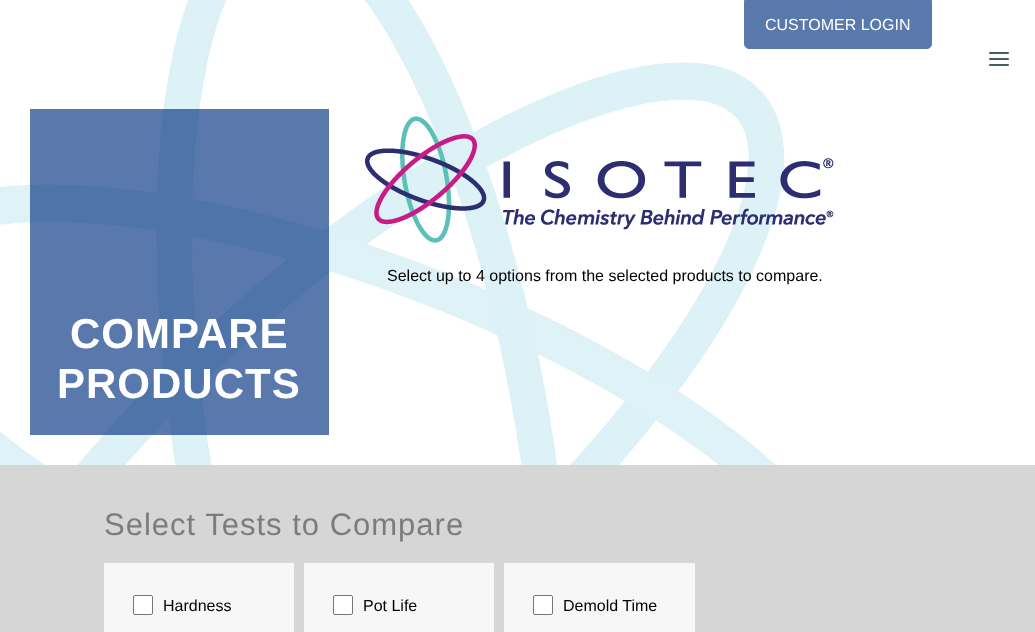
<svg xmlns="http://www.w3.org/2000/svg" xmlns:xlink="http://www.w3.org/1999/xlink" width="1035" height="632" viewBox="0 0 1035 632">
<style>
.cls-1{font:16px Liberation Sans;fill:#ffffff}
.cls-2{font:16px Liberation Sans;fill:#000000}
.cls-3{font:bold 42px Liberation Sans;letter-spacing:1px;fill:#ffffff}
.cls-4{font:31px Liberation Sans;letter-spacing:1px;fill:#7c7c7c}
</style>
<rect width="100%" height="100%" fill="#ffffff"/>
<image xlink:href="image0.png" x="0" y="0" width="785" height="465"/>
<path fill="#5978ab" stroke="#5978ab" d="M744.5 .5H931.5V44C931.5 46.5 929.5 48.5 927 48.5H749C746.5 48.5 744.5 46.5 744.5 44Z"/>
<image xlink:href="image1.png" x="989" y="52" width="20" height="14"/>
<image xlink:href="image2.png" x="365" y="116" width="469" height="127"/>
<rect fill="#073682" fill-opacity="0.67" x="30" y="109" width="299" height="326"/>
<rect fill="#d6d6d6" x="0" y="465" width="1035" height="167"/>
<rect fill="#f7f7f7" x="104" y="563" width="190" height="69"/>
<rect fill="#ffffff" stroke="#767676" x="133.5" y="595.5" width="19" height="19" rx="1.5"/>
<rect fill="#f7f7f7" x="304" y="563" width="190" height="69"/>
<rect fill="#ffffff" stroke="#767676" x="333.5" y="595.5" width="19" height="19" rx="1.5"/>
<rect fill="#f7f7f7" x="504" y="563" width="191" height="69"/>
<rect fill="#ffffff" stroke="#767676" x="533.5" y="595.5" width="19" height="19" rx="1.5"/>
<text class="cls-1" x="765" y="30">CUSTOMER LOGIN</text>
<text class="cls-2" x="387" y="281">Select up to 4 options from the selected products to compare.</text>
<text class="cls-3" x="70" y="348">COMPARE</text>
<text class="cls-3" x="57" y="398">PRODUCTS</text>
<text class="cls-4" x="104" y="535">Select Tests to Compare</text>
<text class="cls-2" x="163" y="611">Hardness</text>
<text class="cls-2" x="363" y="611">Pot Life</text>
<text class="cls-2" x="563" y="611">Demold Time</text>
</svg>
